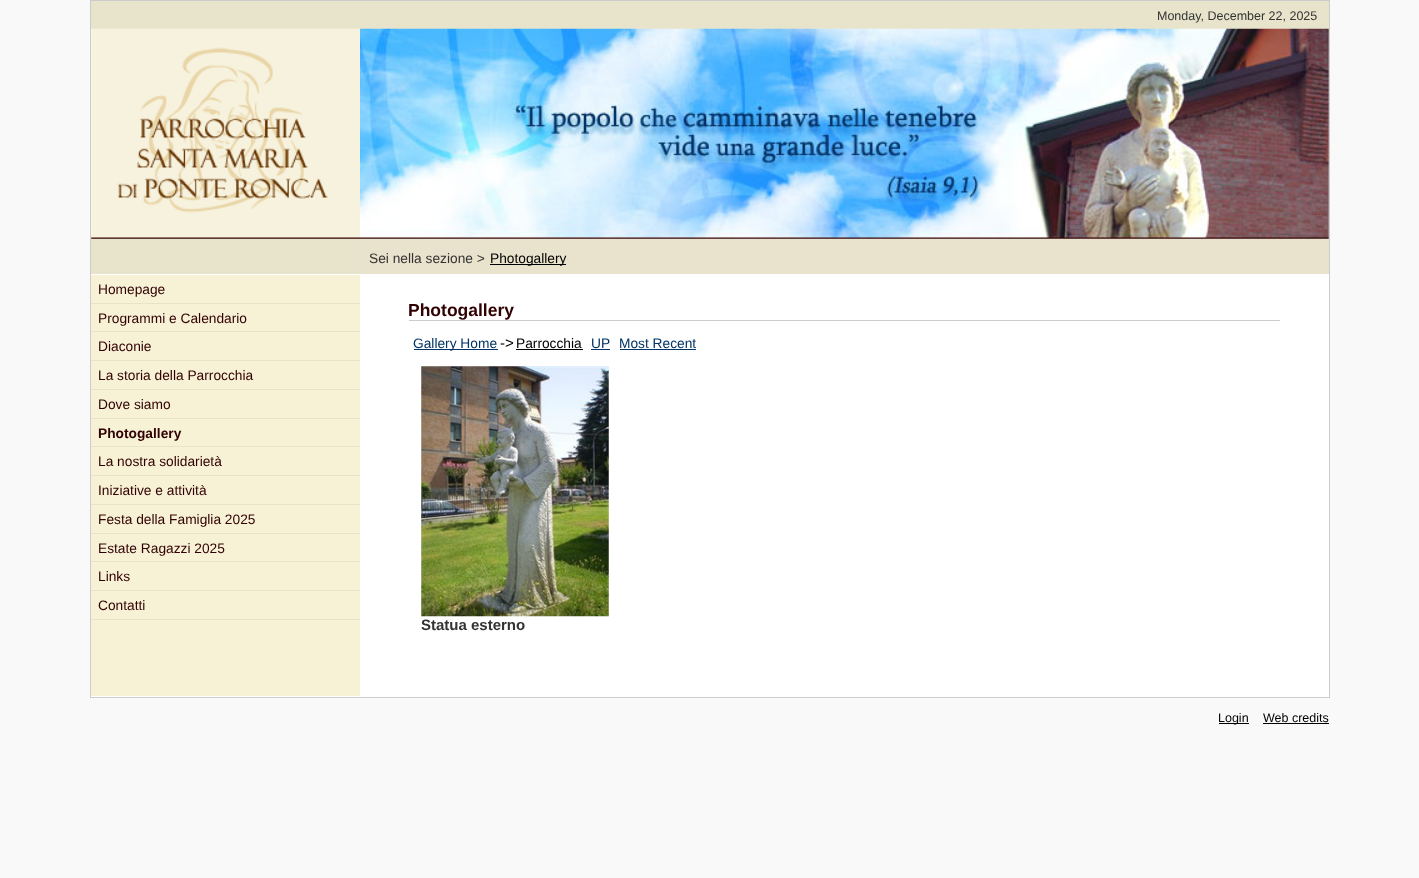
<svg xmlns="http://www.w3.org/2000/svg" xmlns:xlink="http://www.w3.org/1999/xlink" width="1419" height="878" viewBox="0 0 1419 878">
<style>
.cls-1{font:12.5px Liberation Sans;fill:#333333}
.cls-2{font:13.75px Liberation Sans;fill:#333333}
.cls-3{font:13.75px Liberation Sans;fill:#000000}
.cls-4{font:13.75px Liberation Sans;fill:#310002}
.cls-5{font:bold 13.75px Liberation Sans;fill:#310002}
.cls-6{font:bold 17.5px Liberation Sans;fill:#310002}
.cls-7{font:13.75px Liberation Sans;fill:#003366}
.cls-8{font:15px Liberation Sans;fill:#000000}
.cls-9{font:bold 15px Liberation Sans;fill:#333333}
.cls-10{font:12.5px Liberation Sans;fill:#000000}
</style>
<rect width="100%" height="100%" fill="#f9f9f9"/>
<rect fill="#ffffff" x="91" y="29" width="1238" height="668"/>
<rect fill="none" stroke="#cccccc" x="90.5" y="0.5" width="1239" height="697"/>
<rect fill="#e8e4cb" x="91" y="1" width="1238" height="28"/>
<rect fill="#e8e4cb" x="91" y="238" width="269" height="36"/>
<image xlink:href="image0.png" x="91" y="28" width="269" height="211"/>
<image xlink:href="image2.png" x="360" y="238" width="969" height="1"/>
<image xlink:href="image1.png" x="360" y="28" width="969" height="211"/>
<rect fill="#e9e3cd" x="360" y="239" width="969" height="35"/>
<rect fill="#000000" x="490" y="264" width="76" height="1"/>
<rect fill="#f7f2d6" x="91" y="620" width="269" height="76"/>
<rect fill="#f7f2d6" x="91" y="275" width="269" height="28"/>
<rect fill="#e8e4cb" x="91" y="303" width="269" height="1"/>
<rect fill="#f7f2d6" x="91" y="304" width="269" height="56"/>
<rect fill="#e8e4cb" x="91" y="331" width="269" height="1"/>
<rect fill="#e8e4cb" x="91" y="360" width="269" height="1"/>
<rect fill="#f7f2d6" x="91" y="361" width="269" height="28"/>
<rect fill="#e8e4cb" x="91" y="389" width="269" height="1"/>
<rect fill="#f7f2d6" x="91" y="390" width="269" height="28"/>
<rect fill="#e8e4cb" x="91" y="418" width="269" height="1"/>
<rect fill="#f7f2d6" x="91" y="419" width="269" height="56"/>
<rect fill="#e8e4cb" x="91" y="446" width="269" height="1"/>
<rect fill="#e8e4cb" x="91" y="475" width="269" height="1"/>
<rect fill="#f7f2d6" x="91" y="476" width="269" height="28"/>
<rect fill="#e8e4cb" x="91" y="504" width="269" height="1"/>
<rect fill="#f7f2d6" x="91" y="505" width="269" height="28"/>
<rect fill="#e8e4cb" x="91" y="533" width="269" height="1"/>
<rect fill="#f7f2d6" x="91" y="534" width="269" height="56"/>
<rect fill="#e8e4cb" x="91" y="561" width="269" height="1"/>
<rect fill="#e8e4cb" x="91" y="590" width="269" height="1"/>
<rect fill="#f7f2d6" x="91" y="591" width="269" height="28"/>
<rect fill="#e8e4cb" x="91" y="619" width="269" height="1"/>
<rect fill="#cccccc" x="409" y="320" width="871" height="1"/>
<rect fill="#003366" x="414" y="349" width="84" height="1"/>
<rect fill="#000000" x="516" y="349" width="67" height="1"/>
<rect fill="#003366" x="591" y="349" width="19" height="1"/>
<rect fill="#003366" x="620" y="349" width="76" height="1"/>
<image xlink:href="image3.png" x="421" y="366" width="188" height="251"/>
<rect fill="#000000" x="1219" y="723" width="30" height="1"/>
<rect fill="#000000" x="1263" y="723" width="66" height="1"/>
<text class="cls-1" x="1157" y="20">Monday, December 22, 2025</text>
<text class="cls-2" x="369" y="263">Sei nella sezione &gt;</text>
<text class="cls-3" x="490" y="263">Photogallery</text>
<text class="cls-4" x="98" y="294">Homepage</text>
<text class="cls-4" x="98" y="323">Programmi e Calendario</text>
<text class="cls-4" x="98" y="351">Diaconie</text>
<text class="cls-4" x="98" y="380">La storia della Parrocchia</text>
<text class="cls-4" x="98" y="409">Dove siamo</text>
<text class="cls-5" x="98" y="438">Photogallery</text>
<text class="cls-4" x="98" y="466">La nostra solidarietà</text>
<text class="cls-4" x="98" y="495">Iniziative e attività</text>
<text class="cls-4" x="98" y="524">Festa della Famiglia 2025</text>
<text class="cls-4" x="98" y="553">Estate Ragazzi 2025</text>
<text class="cls-4" x="98" y="581">Links</text>
<text class="cls-4" x="98" y="610">Contatti</text>
<text class="cls-6" x="408" y="316">Photogallery</text>
<text class="cls-7" x="413" y="348">Gallery Home</text>
<text class="cls-8" x="500" y="348">-&gt;</text>
<text class="cls-3" x="516" y="348">Parrocchia</text>
<text class="cls-7" x="591" y="348">UP</text>
<text class="cls-7" x="619" y="348">Most Recent</text>
<text class="cls-9" x="421" y="630">Statua esterno</text>
<text class="cls-10" x="1218" y="722">Login</text>
<text class="cls-10" x="1263" y="722">Web credits</text>
</svg>
